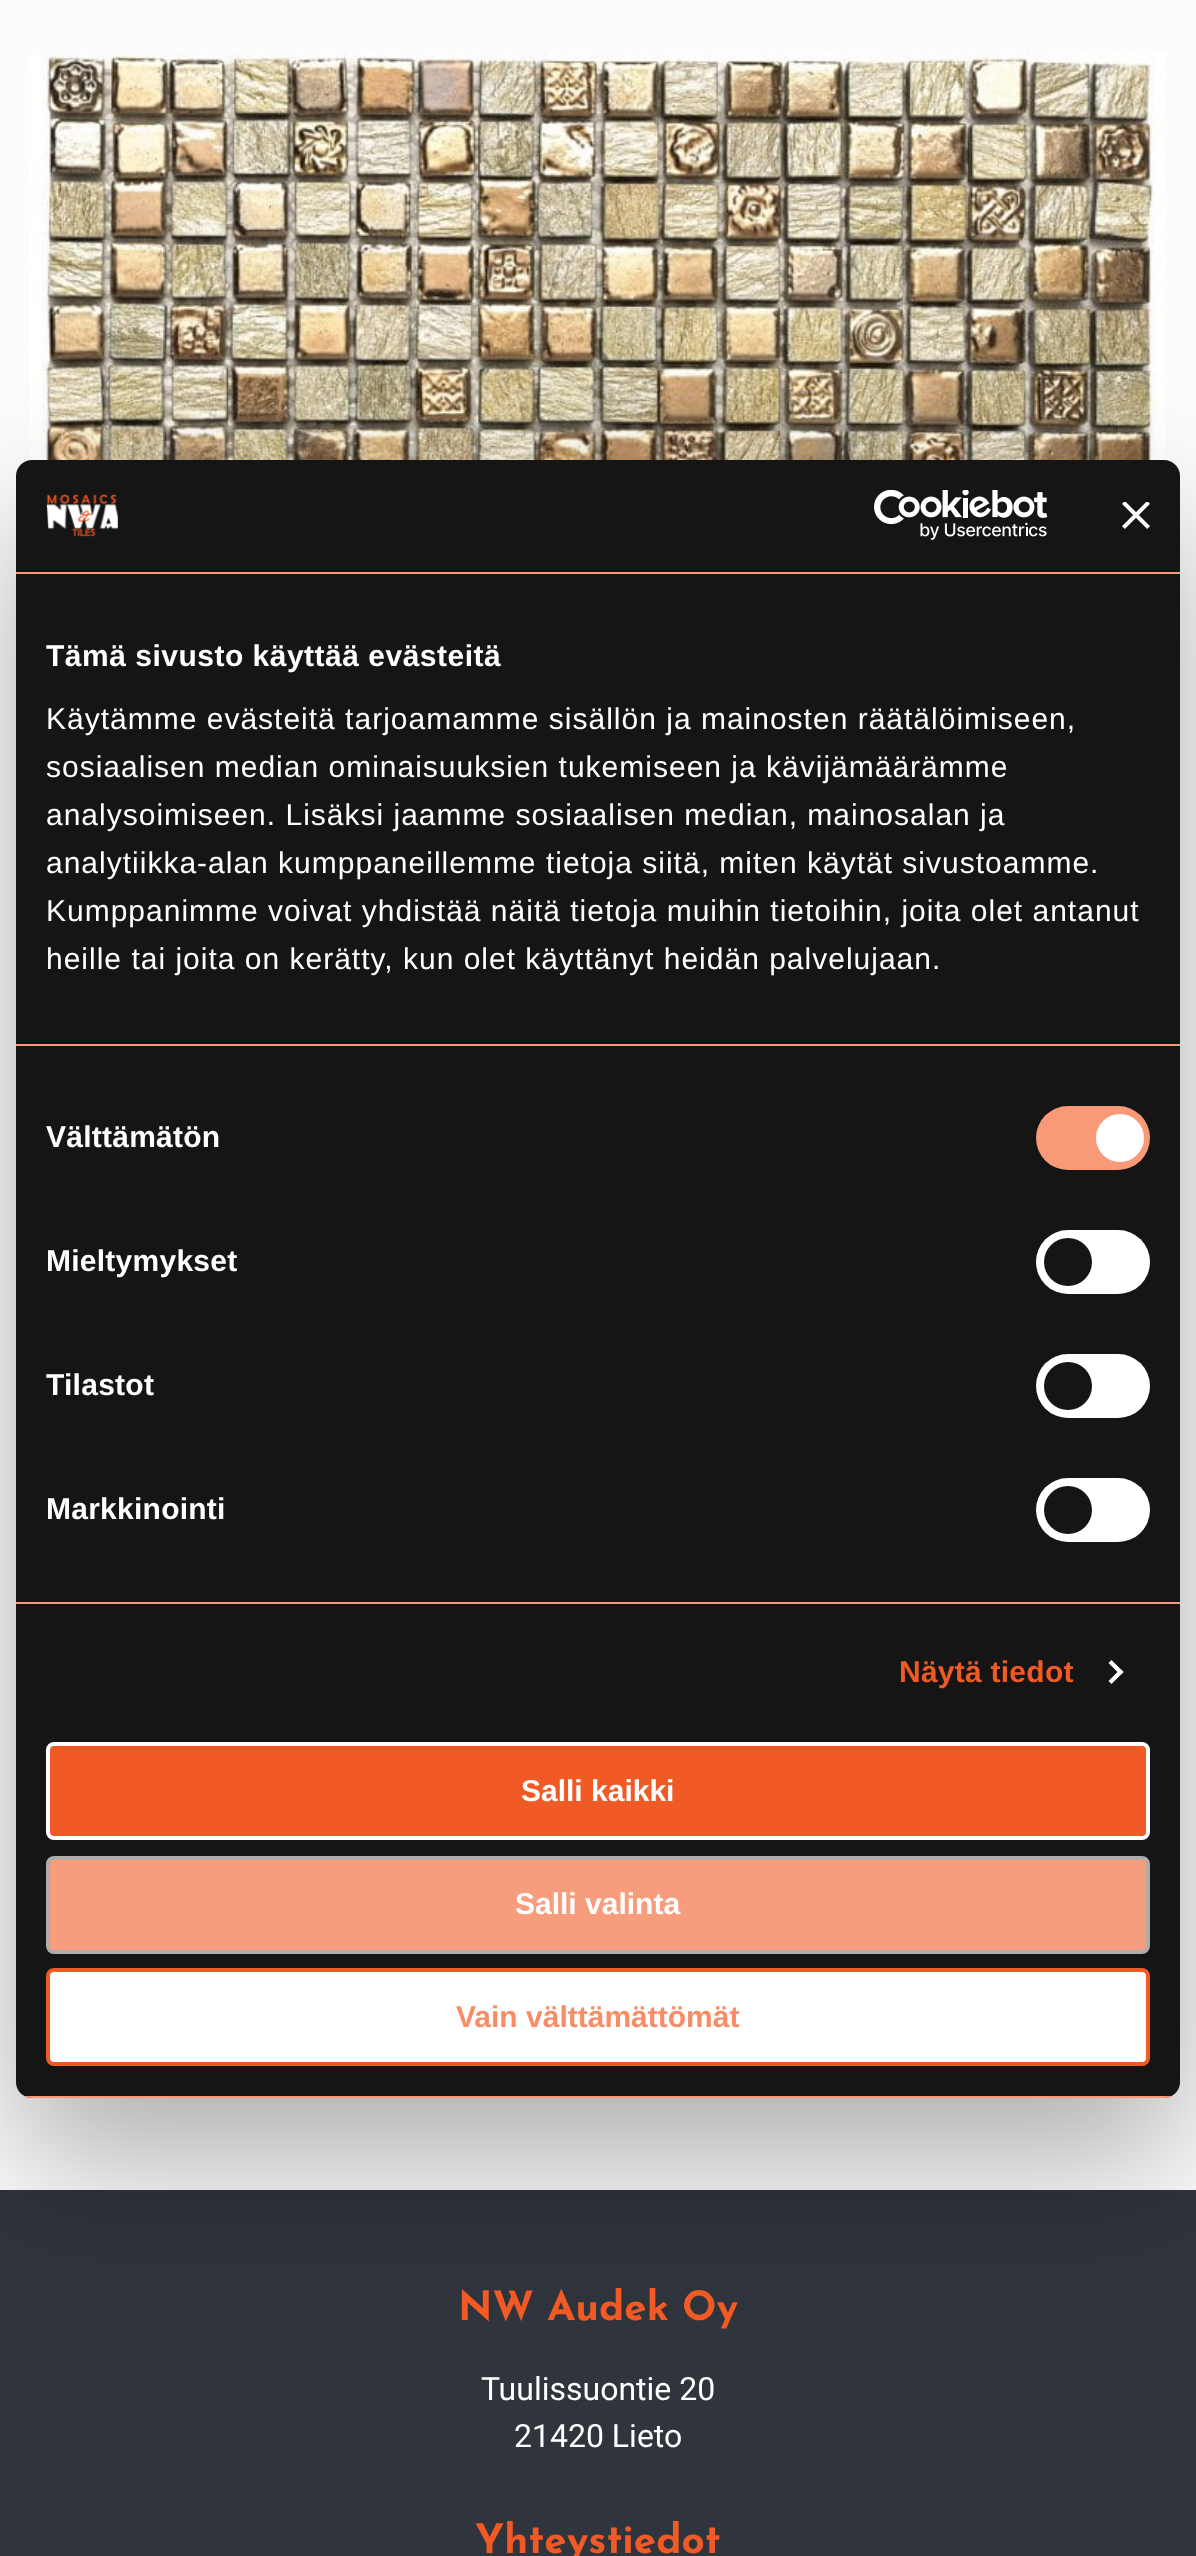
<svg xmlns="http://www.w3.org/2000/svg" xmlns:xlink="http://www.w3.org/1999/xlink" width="1196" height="2556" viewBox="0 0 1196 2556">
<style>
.cls-1{font:bold 30px Liberation Sans;letter-spacing:0.5px;fill:#ffffff}
.cls-2{font:30px Liberation Sans;letter-spacing:1px;fill:#ffffff}
.cls-3{font:bold 30px Liberation Sans;letter-spacing:0.25px;fill:#ffffff}
.cls-4{font:bold 30px Liberation Sans;letter-spacing:0.25px;fill:#f15a24}
.cls-5{font:bold 30px Liberation Sans;fill:#ffffff}
.cls-6{font:bold 30px Liberation Sans;fill:#f78d67}
.cls-7{font:bold 40.5px Josefin Sans;fill:#f15a24}
.cls-8{font:32px Roboto;fill:#ffffff}
</style>
<defs>
<clipPath id="clip1"><rect x="16" y="460" width="1164" height="1638" rx="16"/></clipPath>
</defs>
<rect width="100%" height="100%" fill="#2f343d"/>
<rect fill="#fcfcfc" x="0" y="0" width="1196" height="2190"/>
<image xlink:href="image0.png" x="30" y="53" width="1136" height="408"/>
<rect fill="#000000" fill-opacity="0.3" filter="blur(68px)" x="16" y="524" width="1164" height="1638" rx="16"/>
<rect fill="#151515" x="16" y="460" width="1164" height="1638" rx="16"/>
<rect fill="#f89a78" x="16" y="572" width="1164" height="2"/>
<image xlink:href="image1.png" x="46" y="494" width="72" height="43"/>
<image xlink:href="image2.png" x="874" y="490" width="174" height="50"/>
<image xlink:href="image3.png" x="1122" y="502" width="28" height="27"/>
<rect fill="#f89a78" x="16" y="1044" width="1164" height="2"/>
<rect fill="#f89a78" x="16" y="1602" width="1164" height="2"/>
<rect fill="#f89a78" x="1036" y="1106" width="114" height="64" rx="32"/>
<circle fill="#ffffff" cx="1120" cy="1138" r="24"/>
<rect fill="#ffffff" x="1036" y="1230" width="114" height="64" rx="32"/>
<circle fill="#151515" cx="1068" cy="1262" r="24"/>
<rect fill="#ffffff" x="1036" y="1354" width="114" height="64" rx="32"/>
<circle fill="#151515" cx="1068" cy="1386" r="24"/>
<rect fill="#ffffff" x="1036" y="1478" width="114" height="64" rx="32"/>
<circle fill="#151515" cx="1068" cy="1510" r="24"/>
<path fill="#ffffff" d="M1111.5 1660L1123.5 1672L1120.5 1675L1108.5 1663Z"/>
<path fill="#ffffff" d="M1120.5 1669L1123.5 1672L1111.5 1684L1108.5 1681Z"/>
<g clip-path="url(#clip1)">
<rect fill="#f89a78" x="16" y="2096" width="1164" height="2"/>
</g>
<rect fill="#f15a24" stroke="#ffffff" stroke-width="4" x="48" y="1744" width="1100" height="94" rx="6"/>
<rect fill="#f79c7c" stroke="#aeacac" stroke-width="4" x="48" y="1858" width="1100" height="94" rx="6"/>
<rect fill="#ffffff" stroke="#f15a24" stroke-width="4" x="48" y="1970" width="1100" height="94" rx="6"/>
<text class="cls-1" x="46" y="666">Tämä sivusto käyttää evästeitä</text>
<text class="cls-2"><tspan x="46" y="729">Käytämme evästeitä tarjoamamme sisällön ja mainosten räätälöimiseen,</tspan><tspan x="46" y="777">sosiaalisen median ominaisuuksien tukemiseen ja kävijämäärämme</tspan><tspan x="46" y="825">analysoimiseen. Lisäksi jaamme sosiaalisen median, mainosalan ja</tspan><tspan x="46" y="873">analytiikka-alan kumppaneillemme tietoja siitä, miten käytät sivustoamme.</tspan><tspan x="46" y="921">Kumppanimme voivat yhdistää näitä tietoja muihin tietoihin, joita olet antanut</tspan><tspan x="46" y="969">heille tai joita on kerätty, kun olet käyttänyt heidän palvelujaan.</tspan></text>
<text class="cls-3" x="46" y="1147">Välttämätön</text>
<text class="cls-3" x="46" y="1271">Mieltymykset</text>
<text class="cls-3" x="46" y="1395">Tilastot</text>
<text class="cls-3" x="46" y="1519">Markkinointi</text>
<text class="cls-4" x="899" y="1682">Näytä tiedot</text>
<text class="cls-5" x="521" y="1801">Salli kaikki</text>
<text class="cls-5" x="515" y="1914">Salli valinta</text>
<text class="cls-6" x="456" y="2027">Vain välttämättömät</text>
<text class="cls-7" x="458" y="2320">NW Audek Oy</text>
<text class="cls-8" x="481" y="2400">Tuulissuontie 20</text>
<text class="cls-8" x="514" y="2447">21420 Lieto</text>
<text class="cls-7" x="475" y="2553">Yhteystiedot</text>
</svg>
